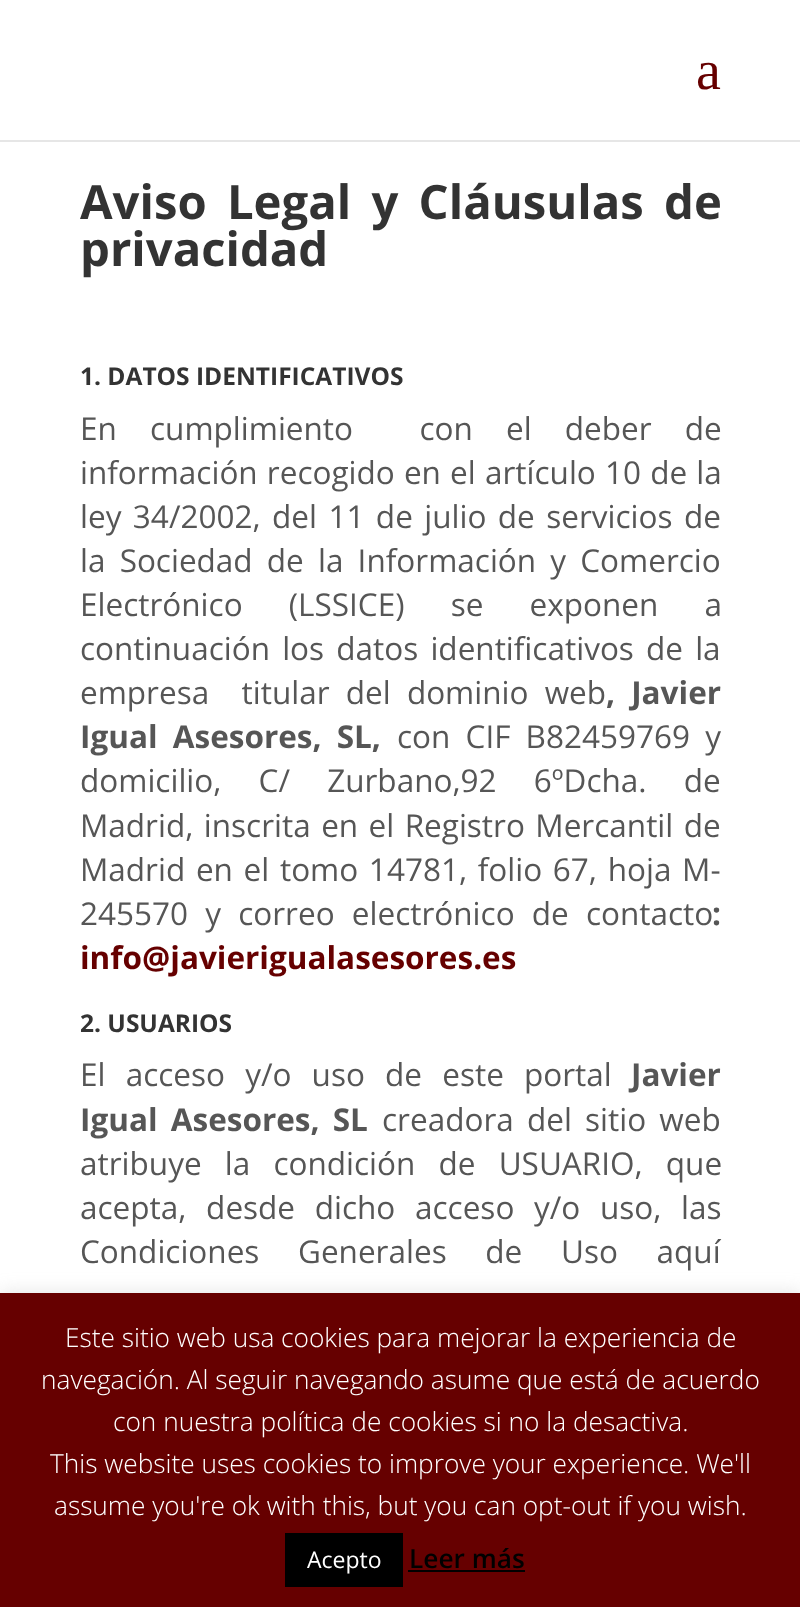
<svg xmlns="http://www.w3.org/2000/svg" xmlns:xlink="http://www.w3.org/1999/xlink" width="800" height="1607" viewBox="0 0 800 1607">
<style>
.cls-1{font:56px Liberation Serif;fill:#660000}
.cls-2{font:bold 47.25px Open Sans;fill:#333333}
.cls-3{font:bold 24.5px Open Sans;fill:#333333}
.cls-4{font:31.5px Open Sans;fill:#565656}
.cls-5{font:bold 31.5px Open Sans;fill:#565656}
.cls-6{font:bold 31.5px Open Sans;fill:#660000}
.cls-7{font:300 26.25px Open Sans;fill:#ffffff}
.cls-8{font:23px Open Sans;fill:#ffffff}
.cls-9{font:600 26.25px Open Sans;fill:#000000}
</style>
<rect width="100%" height="100%" fill="#ffffff"/>
<path fill="#e6e6e6" d="M0 140V142H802V2V140Z"/>
<rect fill="#acabab" fill-opacity="0.3" filter="blur(9px)" x="0" y="1292" width="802" height="315"/>
<rect fill="#660000" x="0" y="1293" width="800" height="314"/>
<rect fill="#000000" x="285" y="1533" width="118" height="54"/>
<rect fill="#000000" x="408" y="1570" width="117" height="2"/>
<text class="cls-1" x="696" y="89">a</text>
<text class="cls-2"><tspan x="80" y="219" word-spacing="8">Aviso Legal y Cláusulas de</tspan><tspan x="80" y="266">privacidad</tspan></text>
<text class="cls-3" x="80" y="385">1. DATOS IDENTIFICATIVOS</text>
<text class="cls-4" xml:space="preserve"><tspan x="80" y="440" word-spacing="25">En cumplimiento  con el deber de</tspan><tspan x="80" y="484" word-spacing="1">información recogido en el artículo 10 de la</tspan><tspan x="80" y="528" word-spacing="3.25">ley 34/2002, del 11 de julio de servicios de</tspan><tspan x="80" y="572" word-spacing="6">la Sociedad de la Información y Comercio</tspan><tspan x="80" y="616" word-spacing="38">Electrónico (LSSICE) se exponen a</tspan><tspan x="80" y="660" word-spacing="4">continuación los datos identificativos de la</tspan><tspan x="80" y="704" word-spacing="8">empresa  titular del dominio web</tspan></text>
<text class="cls-5" x="606" y="704" word-spacing="8">, Javier</text>
<text class="cls-5" x="80" y="748" word-spacing="7">Igual Asesores, SL,</text>
<text class="cls-4" x="397" y="748" word-spacing="7">con CIF B82459769 y</text>
<text class="cls-4"><tspan x="80" y="792" word-spacing="29">domicilio, C/ Zurbano,92 6ºDcha. de</tspan><tspan x="80" y="837" word-spacing="2.25">Madrid, inscrita en el Registro Mercantil de</tspan><tspan x="80" y="881" word-spacing="2.5">Madrid en el tomo 14781, folio 67, hoja M-</tspan><tspan x="80" y="925" word-spacing="9">245570 y correo electrónico de contacto</tspan></text>
<text class="cls-5" x="712" y="925">:</text>
<text class="cls-6" x="80" y="969">info@javierigualasesores.es</text>
<text class="cls-3" x="80" y="1032">2. USUARIOS</text>
<text class="cls-4" x="80" y="1086" word-spacing="12">El acceso y/o uso de este portal</text>
<text class="cls-5" x="631" y="1086">Javier</text>
<text class="cls-5" x="80" y="1131" word-spacing="5">Igual Asesores, SL</text>
<text class="cls-4" x="382" y="1131" word-spacing="5">creadora del sitio web</text>
<text class="cls-4"><tspan x="80" y="1175" word-spacing="15">atribuye la condición de USUARIO, que</tspan><tspan x="80" y="1219" word-spacing="11.5">acepta, desde dicho acceso y/o uso, las</tspan><tspan x="80" y="1263" word-spacing="30.5">Condiciones Generales de Uso aquí</tspan></text>
<text class="cls-7" x="65" y="1347">Este sitio web usa cookies para mejorar la experiencia de</text>
<text class="cls-7" x="41" y="1389">navegación. Al seguir navegando asume que está de acuerdo</text>
<text class="cls-7" x="113" y="1431">con nuestra política de cookies si no la desactiva.</text>
<text class="cls-7" x="50" y="1473">This website uses cookies to improve your experience. We'll</text>
<text class="cls-7" x="54" y="1515">assume you're ok with this, but you can opt-out if you wish.</text>
<text class="cls-8" x="307" y="1568">Acepto</text>
<text class="cls-9" x="409" y="1568">Leer más</text>
</svg>
